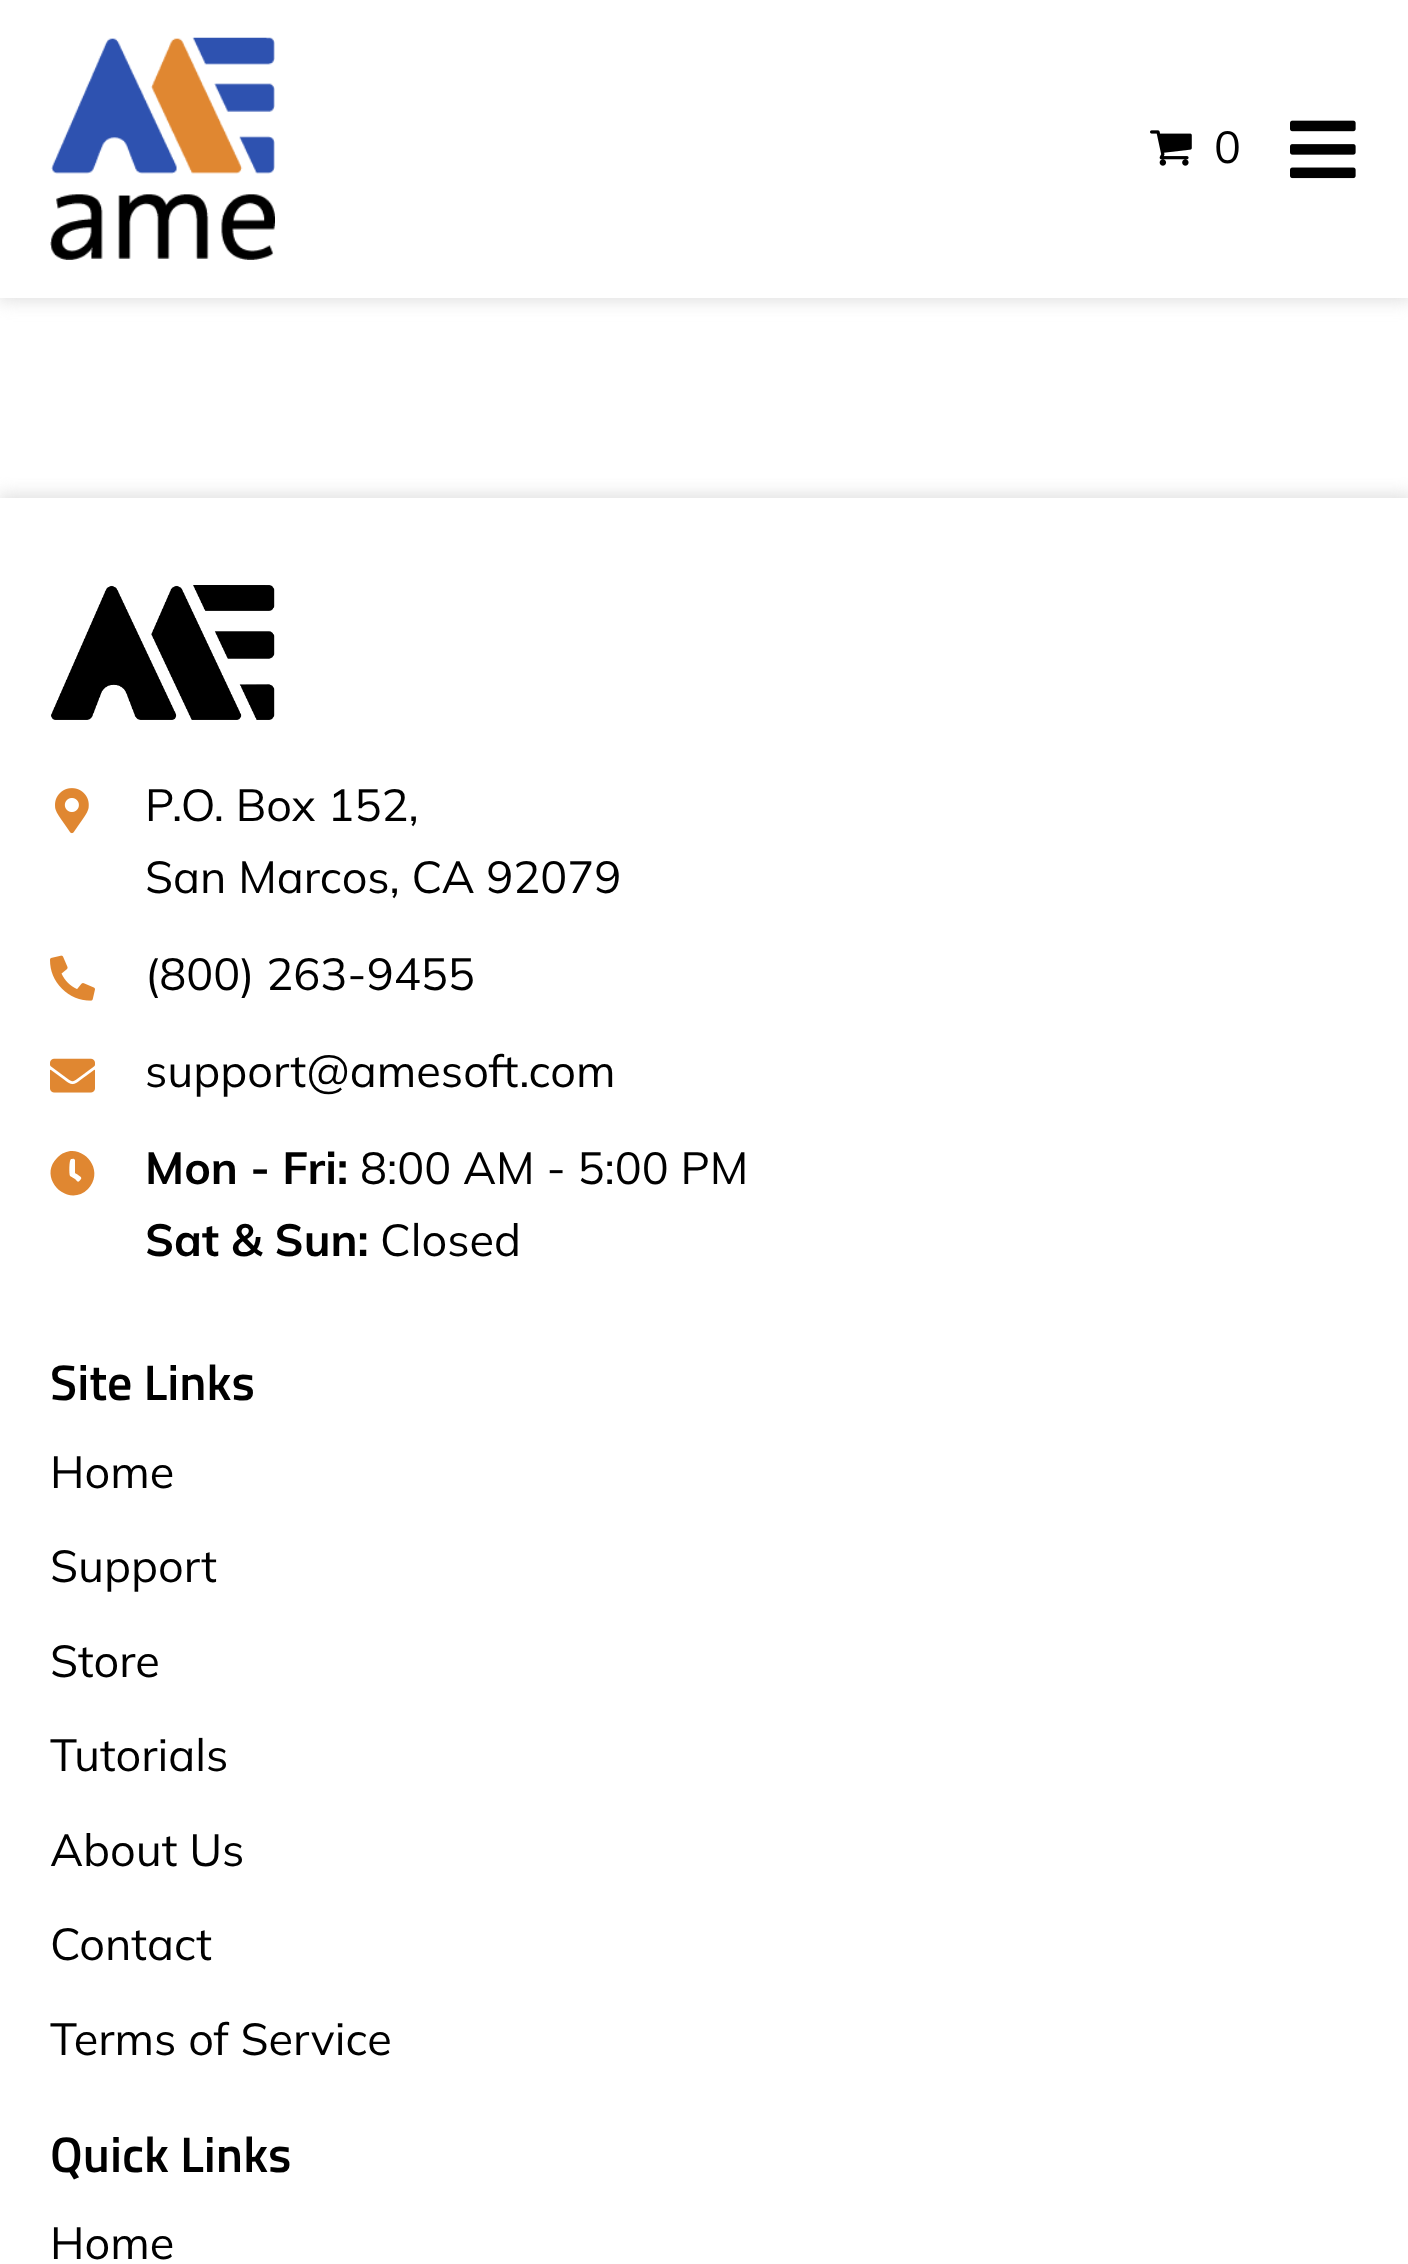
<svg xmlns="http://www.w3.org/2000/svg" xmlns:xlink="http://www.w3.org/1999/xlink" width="1408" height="2264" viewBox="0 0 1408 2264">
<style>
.cls-1{font:45px Mulish;fill:#000000}
.cls-2{font:bold 45px Mulish;fill:#000000}
.cls-3{font:600 50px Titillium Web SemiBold;fill:#000000}
</style>
<defs>
<clipPath id="clip1"><rect x="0" y="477" width="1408" height="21"/></clipPath>
</defs>
<rect width="100%" height="100%" fill="#ffffff"/>
<rect fill="#dddddd" filter="blur(9px)" x="-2" y="-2" width="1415" height="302"/>
<rect fill="#ffffff" x="0" y="0" width="1408" height="298"/>
<image xlink:href="image0.png" x="50" y="37" width="225" height="223"/>
<image xlink:href="image1.png" x="1150" y="130" width="42" height="36"/>
<image xlink:href="image2.png" x="1290" y="120" width="66" height="59"/>
<g clip-path="url(#clip1)">
<rect fill="#dddddd" filter="blur(9px)" x="-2" y="495" width="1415" height="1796"/>
</g>
<image xlink:href="image3.png" x="51" y="585" width="224" height="135"/>
<image xlink:href="image4.png" x="55" y="788" width="34" height="46"/>
<image xlink:href="image5.png" x="50" y="955" width="45" height="46"/>
<image xlink:href="image6.png" x="50" y="1058" width="45" height="35"/>
<path fill="#e08731" d="M57 1158C77 1137 108 1168 88 1189C68 1209 37 1178 57 1158ZM81 1179C83 1177 76 1174 75 1173V1160C74 1158 72 1159 71 1159C69 1160 69 1174 70 1176L75 1179C78 1182 78 1183 81 1179Z"/>
<text class="cls-1" x="1214" y="163">0</text>
<text class="cls-1"><tspan x="145" y="821">P.O. Box 152,</tspan><tspan x="145" y="893">San Marcos, CA 92079</tspan></text>
<text class="cls-1" x="145" y="990">(800) 263-9455</text>
<text class="cls-1" x="145" y="1087">support@amesoft.com</text>
<text class="cls-2" x="145" y="1184">Mon - Fri:</text>
<text class="cls-1" x="360" y="1184">8:00 AM - 5:00 PM</text>
<text class="cls-2" x="145" y="1256">Sat &amp; Sun:</text>
<text class="cls-1" x="380" y="1256">Closed</text>
<text class="cls-3" x="50" y="1400">Site Links</text>
<text class="cls-1" x="50" y="1488">Home</text>
<text class="cls-1" x="50" y="1582">Support</text>
<text class="cls-1" x="50" y="1677">Store</text>
<text class="cls-1" x="50" y="1771">Tutorials</text>
<text class="cls-1" x="50" y="1866">About Us</text>
<text class="cls-1" x="50" y="1960">Contact</text>
<text class="cls-1" x="50" y="2055">Terms of Service</text>
<text class="cls-3" x="50" y="2172">Quick Links</text>
<text class="cls-1" x="50" y="2259">Home</text>
</svg>
